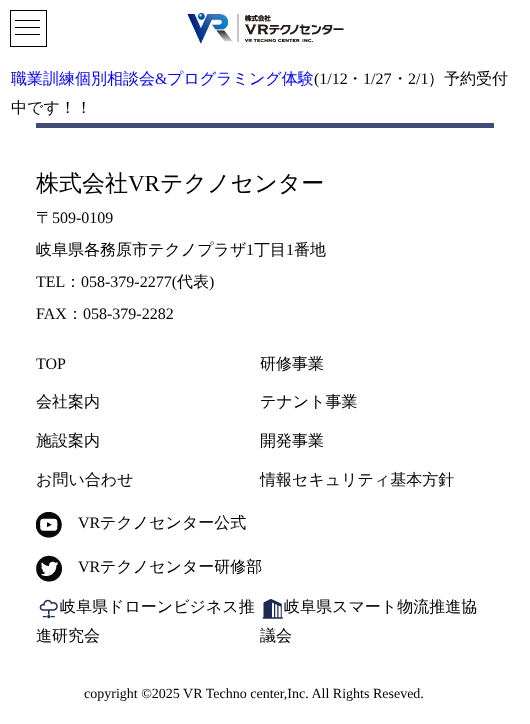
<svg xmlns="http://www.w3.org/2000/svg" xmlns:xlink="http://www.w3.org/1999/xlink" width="530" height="724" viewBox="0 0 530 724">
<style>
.cls-1{font:500 16px WenQuanYi Zen Hei;fill:#0000ee}
.cls-2{font:16px Liberation Serif;fill:#0000ee}
.cls-3{font:16px Liberation Serif;fill:#000000}
.cls-4{font:500 16px WenQuanYi Zen Hei;fill:#000000}
.cls-5{font:500 23px WenQuanYi Zen Hei;fill:#000000}
.cls-6{font:23px Liberation Serif;fill:#000000}
.cls-7{font:14px Liberation Serif;fill:#000000}
</style>
<rect width="100%" height="100%" fill="#ffffff"/>
<rect fill="#000000" x="15" y="20" width="25" height="1"/>
<rect fill="#000000" x="15" y="27" width="25" height="1"/>
<rect fill="#000000" x="15" y="34" width="25" height="1"/>
<rect fill="none" stroke="#000000" x="10.5" y="10.5" width="36" height="36"/>
<image xlink:href="image0.png" x="187" y="13" width="157" height="31"/>
<rect fill="#404c74" x="36" y="123" width="458" height="5"/>
<image xlink:href="image1.png" x="36" y="512" width="26" height="26"/>
<image xlink:href="image2.png" x="36" y="555" width="26" height="27"/>
<image xlink:href="image3.png" x="39" y="599" width="19" height="20"/>
<image xlink:href="image4.png" x="262" y="599" width="21" height="20"/>
<text class="cls-1" x="11" y="84">職業訓練個別相談会</text>
<text class="cls-2" x="155" y="84">&amp;</text>
<text class="cls-1" x="167" y="84">プログラミング体験</text>
<text class="cls-3" x="314" y="84">(1/12</text>
<text class="cls-4" x="347" y="84">・</text>
<text class="cls-3" x="363" y="84">1/27</text>
<text class="cls-4" x="392" y="84">・</text>
<text class="cls-3" x="408" y="84">2/1</text>
<text class="cls-4" x="428" y="84">）予約受付</text>
<text class="cls-4" x="11" y="113">中です！！</text>
<text class="cls-5" x="36" y="191">株式会社</text>
<text class="cls-6" x="128" y="191">VR</text>
<text class="cls-5" x="160" y="191">テクノセンター</text>
<text class="cls-4" x="36" y="223">〒</text>
<text class="cls-3" x="52" y="223">509-0109</text>
<text class="cls-4" x="36" y="255">岐阜県各務原市テクノプラザ</text>
<text class="cls-3" x="246" y="255">1</text>
<text class="cls-4" x="254" y="255">丁目</text>
<text class="cls-3" x="286" y="255">1</text>
<text class="cls-4" x="294" y="255">番地</text>
<text class="cls-3" x="36" y="287">TEL</text>
<text class="cls-4" x="65" y="287">：</text>
<text class="cls-3" x="81" y="287">058-379-2277(</text>
<text class="cls-4" x="177" y="287">代表</text>
<text class="cls-3" x="209" y="287">)</text>
<text class="cls-3" x="36" y="319">FAX</text>
<text class="cls-4" x="67" y="319">：</text>
<text class="cls-3" x="83" y="319">058-379-2282</text>
<text class="cls-3" x="36" y="369">TOP</text>
<text class="cls-4" x="260" y="369">研修事業</text>
<text class="cls-4" x="36" y="407">会社案内</text>
<text class="cls-4" x="260" y="407">テナント事業</text>
<text class="cls-4" x="36" y="446">施設案内</text>
<text class="cls-4" x="260" y="446">開発事業</text>
<text class="cls-4" x="36" y="485">お問い合わせ</text>
<text class="cls-4" x="260" y="485">情報セキュリティ基本方針</text>
<text class="cls-3" x="78" y="528">VR</text>
<text class="cls-4" x="100" y="528">テクノセンター公式</text>
<text class="cls-3" x="78" y="572">VR</text>
<text class="cls-4" x="100" y="572">テクノセンター研修部</text>
<text class="cls-4" x="60" y="612">岐阜県ドローンビジネス推</text>
<text class="cls-4" x="36" y="641">進研究会</text>
<text class="cls-4" x="284" y="612">岐阜県スマート物流推進協</text>
<text class="cls-4" x="260" y="641">議会</text>
<text class="cls-7" x="84" y="698">copyright ©2025 VR Techno center,Inc. All Rights Reseved.</text>
</svg>
